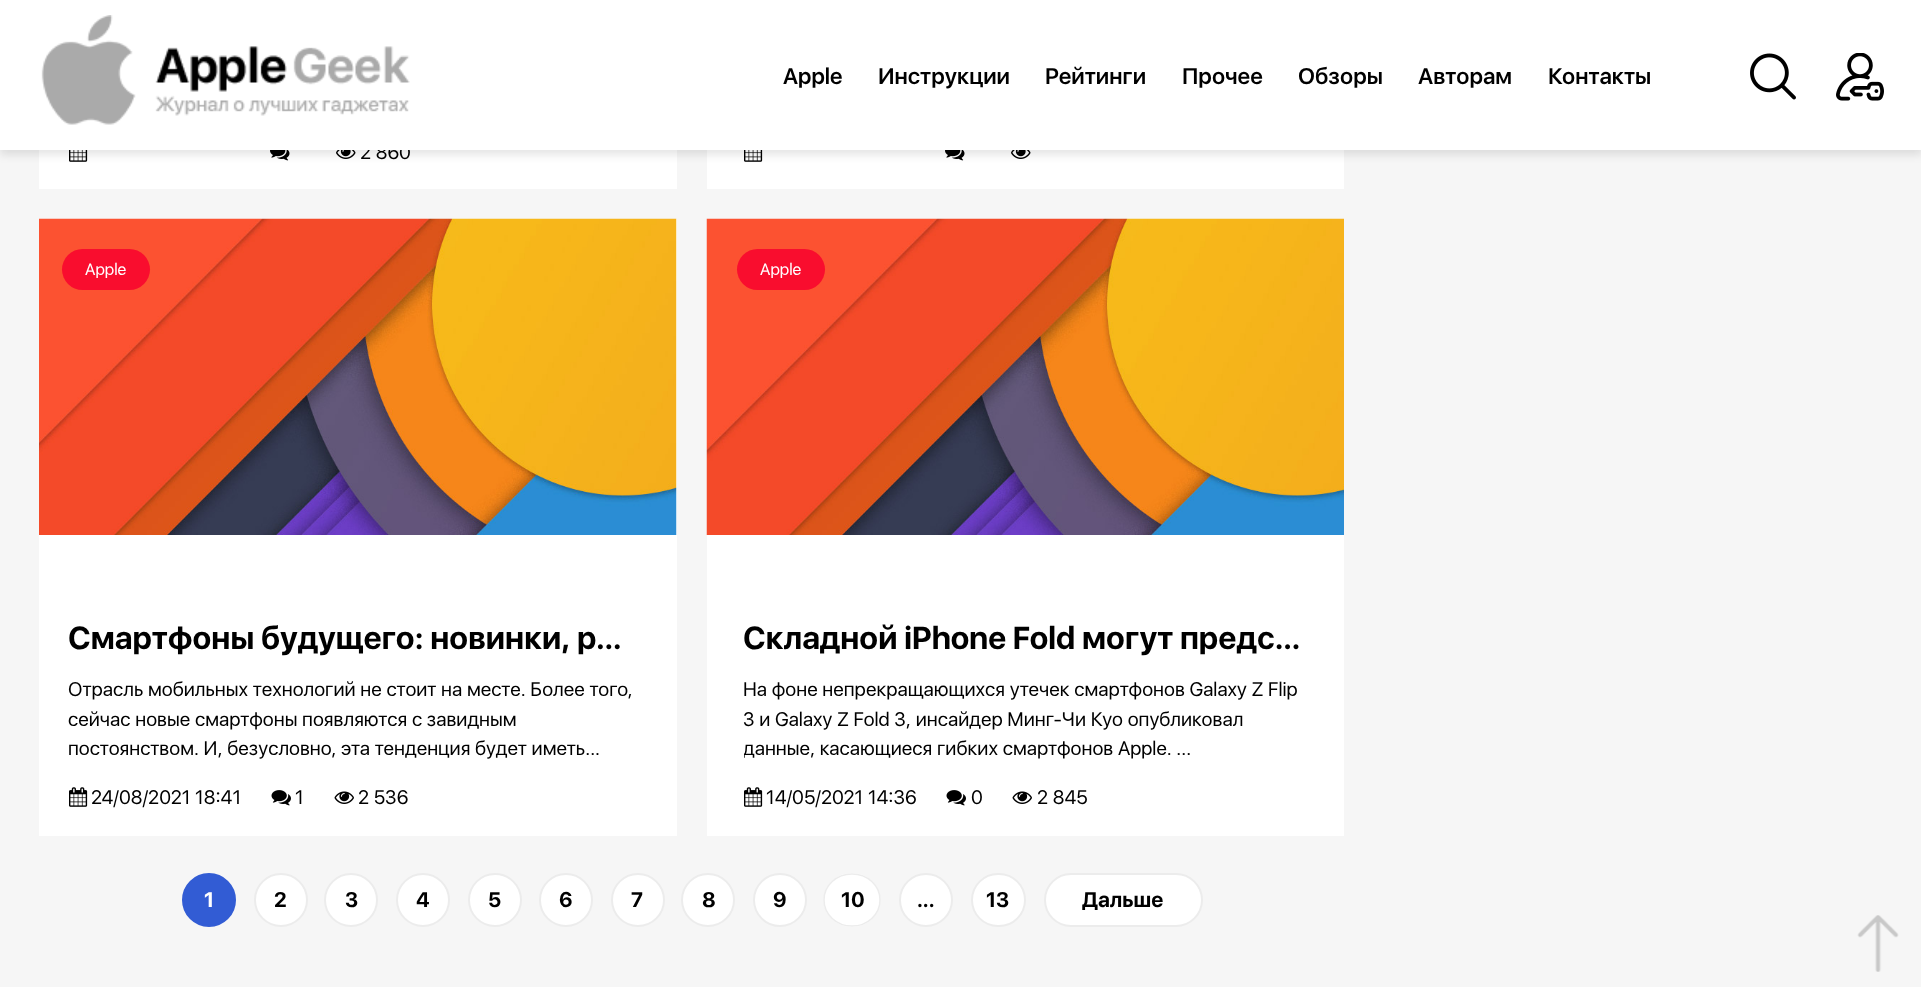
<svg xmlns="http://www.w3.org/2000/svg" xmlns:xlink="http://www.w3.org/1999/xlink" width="1921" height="987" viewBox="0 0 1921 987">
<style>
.cls-1{font:19.5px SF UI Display;fill:#000000}
.cls-2{font:600 22.5px SF UI Display;fill:#000000}
.cls-3{font:16.5px SF UI Display;fill:#ffffff}
.cls-4{font:bold 31.5px SF UI Display;fill:#000000}
.cls-5{font:bold 21px SF UI Display;fill:#ffffff}
.cls-6{font:bold 21px SF UI Display;fill:#000000}
</style>
<defs>
<clipPath id="clip1"><rect x="744" y="675" width="570" height="90"/></clipPath>
</defs>
<rect width="100%" height="100%" fill="#f6f6f6"/>
<rect fill="#ffffff" x="39" y="150" width="638" height="39"/>
<image xlink:href="image3.png" x="69" y="150" width="19" height="12"/>
<image xlink:href="image4.png" x="270" y="150" width="20" height="11"/>
<image xlink:href="image5.png" x="336" y="150" width="20" height="9"/>
<rect fill="#ffffff" x="707" y="150" width="637" height="39"/>
<image xlink:href="image3.png" x="744" y="150" width="19" height="12"/>
<image xlink:href="image4.png" x="945" y="150" width="20" height="11"/>
<image xlink:href="image5.png" x="1011" y="150" width="20" height="9"/>
<rect fill="#000101" fill-opacity="0.1" filter="blur(4px)" x="0" y="5" width="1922" height="150"/>
<rect fill="#ffffff" x="39" y="219" width="638" height="617"/>
<image xlink:href="image6.png" x="39" y="218" width="638" height="317"/>
<rect fill="#f90d2e" x="62" y="249" width="88" height="41" rx="20.5"/>
<image xlink:href="image7.png" x="69" y="787" width="19" height="20"/>
<image xlink:href="image8.png" x="271" y="790" width="20" height="16"/>
<image xlink:href="image9.png" x="334" y="791" width="20" height="13"/>
<image xlink:href="image10.png" x="706" y="218" width="638" height="317"/>
<rect fill="#f90d2e" x="737" y="249" width="88" height="41" rx="20.5"/>
<rect fill="#ffffff" x="707" y="535" width="637" height="301"/>
<image xlink:href="image7.png" x="744" y="787" width="19" height="20"/>
<image xlink:href="image8.png" x="946" y="790" width="20" height="16"/>
<image xlink:href="image9.png" x="1012" y="791" width="20" height="13"/>
<circle fill="#325cd4" stroke="#325cd4" stroke-width="2" cx="209" cy="900" r="26"/>
<circle fill="#ffffff" stroke="#ececec" stroke-width="2" cx="281" cy="900" r="26"/>
<circle fill="#ffffff" stroke="#ececec" stroke-width="2" cx="351" cy="900" r="26"/>
<circle fill="#ffffff" stroke="#ececec" stroke-width="2" cx="423" cy="900" r="26"/>
<circle fill="#ffffff" stroke="#ececec" stroke-width="2" cx="495" cy="900" r="26"/>
<circle fill="#ffffff" stroke="#ececec" stroke-width="2" cx="566" cy="900" r="26"/>
<circle fill="#ffffff" stroke="#ececec" stroke-width="2" cx="638" cy="900" r="26"/>
<circle fill="#ffffff" stroke="#ececec" stroke-width="2" cx="708" cy="900" r="26"/>
<circle fill="#ffffff" stroke="#ececec" stroke-width="2" cx="780" cy="900" r="26"/>
<ellipse fill="#ffffff" cx="852" cy="900" rx="28.5" ry="27"/>
<path fill="none" stroke="#ececec" stroke-width="1.5" d="M852 874C867.5 874 880 885.5 880 900C880 914.5 867.5 926 852 926C836.5 926 824 914.5 824 900C824 885.5 836.5 874 852 874Z"/>
<circle fill="#ffffff" stroke="#ececec" stroke-width="2" cx="926" cy="900" r="26"/>
<rect fill="#ffffff" stroke="#ececec" stroke-width="2" x="972" y="874" width="53" height="52" rx="26"/>
<rect fill="#ffffff" stroke="#ececec" stroke-width="2" x="1045" y="874" width="157" height="52" rx="26"/>
<image xlink:href="image11.png" x="1857" y="915" width="42" height="57"/>
<text class="cls-1" x="360" y="159">2 860</text>
<rect fill="#ffffff" x="0" y="0" width="1921" height="150"/>
<text class="cls-2" x="1548" y="84">Контакты</text>
<text class="cls-2" x="1418" y="84">Авторам</text>
<text class="cls-2" x="1298" y="84">Обзоры</text>
<text class="cls-2" x="1182" y="84">Прочее</text>
<text class="cls-2" x="1045" y="84">Рейтинги</text>
<text class="cls-2" x="878" y="84">Инструкции</text>
<text class="cls-2" x="783" y="84">Apple</text>
<image xlink:href="image1.png" x="1750" y="53" width="46" height="47"/>
<image xlink:href="image2.png" x="1836" y="53" width="48" height="48"/>
<image xlink:href="image0.png" x="41" y="15" width="369" height="110"/>
<text class="cls-3" x="85" y="275">Apple</text>
<text class="cls-4" x="68" y="649">Смартфоны будущего: новинки, р…</text>
<text class="cls-1"><tspan x="68" y="696">Отрасль мобильных технологий не стоит на месте. Более того,</tspan><tspan x="68" y="726">сейчас новые смартфоны появляются с завидным</tspan><tspan x="68" y="755">постоянством. И, безусловно, эта тенденция будет иметь...</tspan></text>
<text class="cls-1" x="91" y="804">24/08/2021 18:41</text>
<text class="cls-1" x="295" y="804">1</text>
<text class="cls-1" x="358" y="804">2 536</text>
<text class="cls-3" x="760" y="275">Apple</text>
<text class="cls-4" x="743" y="649">Складной iPhone Fold могут предс…</text>
<text class="cls-1"><tspan x="743" y="696">На фоне непрекращающихся утечек смартфонов Galaxy Z Flip</tspan><tspan x="743" y="726">3 и Galaxy Z Fold 3, инсайдер Минг-Чи Куо опубликовал</tspan></text>
<g clip-path="url(#clip1)">
<text class="cls-1" x="743" y="755">данные, касающиеся гибких смартфонов Apple. ...</text>
</g>
<text class="cls-1" x="766" y="804">14/05/2021 14:36</text>
<text class="cls-1" x="971" y="804">0</text>
<text class="cls-1" x="1037" y="804">2 845</text>
<text class="cls-5" x="204" y="907">1</text>
<text class="cls-6" x="274" y="907">2</text>
<text class="cls-6" x="345" y="907">3</text>
<text class="cls-6" x="416" y="907">4</text>
<text class="cls-6" x="488" y="907">5</text>
<text class="cls-6" x="559" y="907">6</text>
<text class="cls-6" x="631" y="907">7</text>
<text class="cls-6" x="702" y="907">8</text>
<text class="cls-6" x="773" y="907">9</text>
<text class="cls-6" x="841" y="907">10</text>
<text class="cls-6" x="917" y="907">...</text>
<text class="cls-6" x="986" y="907">13</text>
<text class="cls-6" x="1082" y="907">Дальше</text>
</svg>
